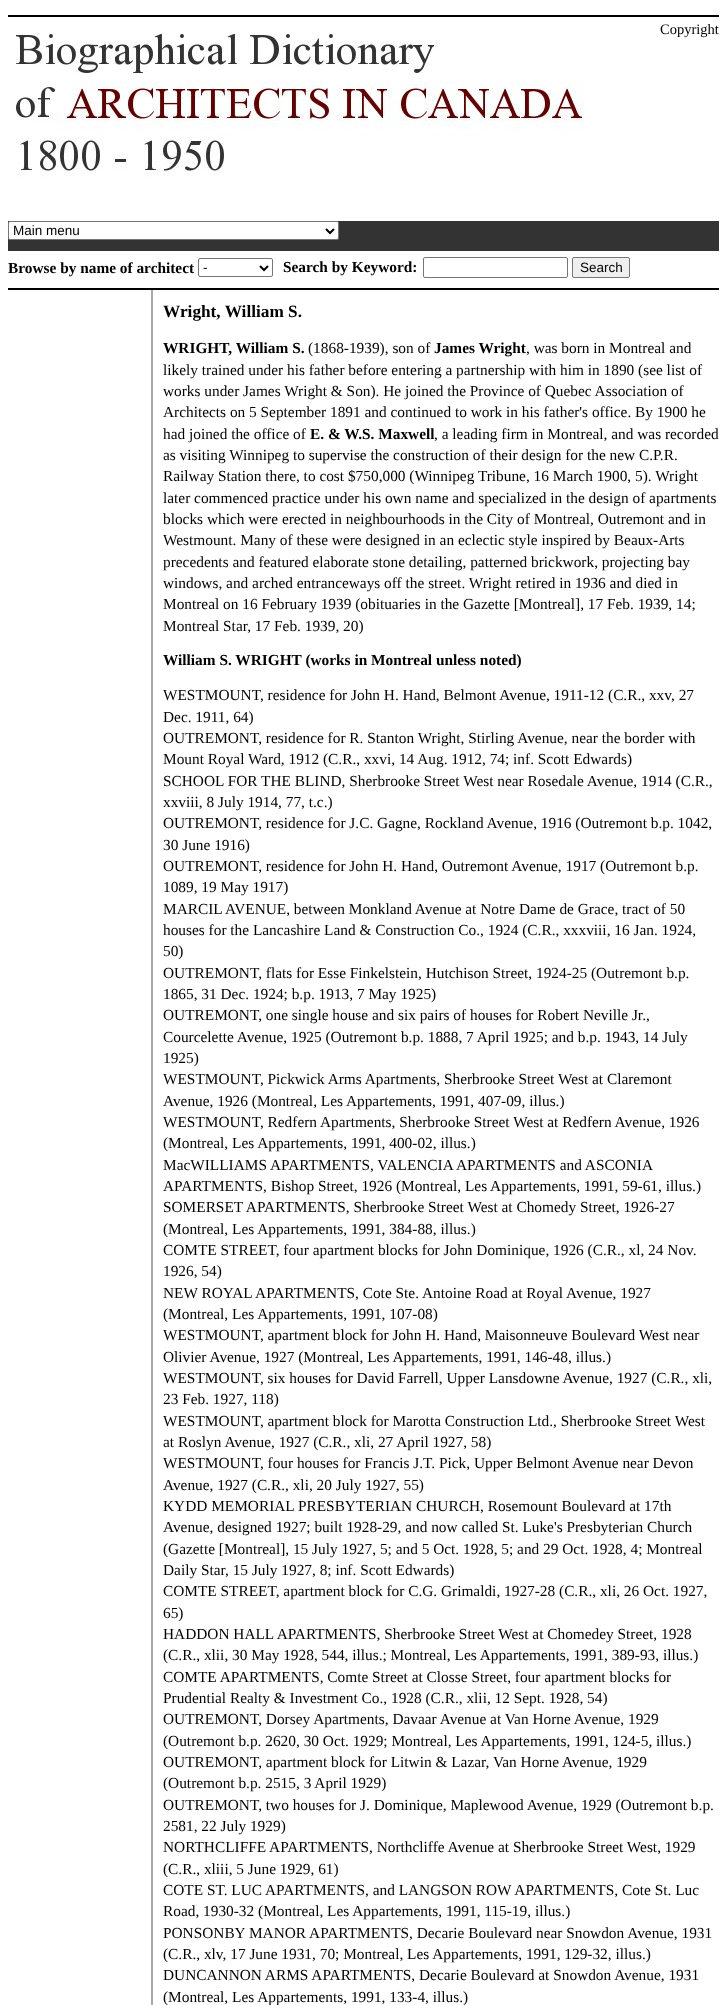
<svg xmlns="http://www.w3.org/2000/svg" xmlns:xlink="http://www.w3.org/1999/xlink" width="727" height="2005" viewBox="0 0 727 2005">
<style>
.cls-1{font:14.5px Liberation Serif;fill:#000000}
.cls-2{font:13.5px Liberation Sans;fill:#000000}
.cls-3{font:bold 15.35px Liberation Serif;fill:#000000}
.cls-4{font:bold 17.25px Liberation Serif;fill:#000000}
.cls-5{font:15.35px Liberation Serif;fill:#000000}
</style>
<rect width="100%" height="100%" fill="#ffffff"/>
<rect fill="#000000" x="8" y="15" width="711" height="2"/>
<rect fill="#333333" x="8" y="221" width="711" height="30"/>
<rect fill="#ffffff" stroke="#767676" x="8.5" y="221.5" width="330" height="18" rx="1.5"/>
<path fill="none" stroke="#000000" stroke-width="2" d="M326 229L330 233L334 229"/>
<rect fill="none" stroke="#767676" x="198.5" y="258.5" width="74" height="18" rx="1.5"/>
<path fill="none" stroke="#000000" stroke-width="2" d="M260 266L264 270L268 266"/>
<rect fill="none" stroke="#767676" x="423.5" y="257.5" width="144" height="20" rx="1.5"/>
<rect fill="#efefef" stroke="#767676" x="572.5" y="257.5" width="57" height="20" rx="1.5"/>
<image xlink:href="image0.png" x="16" y="24" width="630" height="153"/>
<rect fill="#000000" x="8" y="288" width="711" height="2"/>
<rect fill="#a8a8a8" x="151" y="290" width="2" height="1715"/>
<text class="cls-1" x="660" y="34">Copyright</text>
<text class="cls-2" x="13" y="235">Main menu</text>
<text class="cls-3" x="8" y="273">Browse by name of architect</text>
<text class="cls-2" x="203" y="272">-</text>
<text class="cls-3" x="283" y="272">Search by Keyword:</text>
<text class="cls-2" x="580" y="272">Search</text>
<text class="cls-4" x="163" y="317">Wright, William S.</text>
<text class="cls-3" x="163" y="353">WRIGHT, William S.</text>
<text class="cls-5" x="308" y="353">(1868-1939), son of</text>
<text class="cls-3" x="434" y="353">James Wright</text>
<text class="cls-5" x="526" y="353">, was born in Montreal and</text>
<text class="cls-5"><tspan x="163" y="375">likely trained under his father before entering a partnership with him in 1890 (see list of</tspan><tspan x="163" y="396">works under James Wright &amp; Son). He joined the Province of Quebec Association of</tspan><tspan x="163" y="417">Architects on 5 September 1891 and continued to work in his father's office. By 1900 he</tspan><tspan x="163" y="439">had joined the office of</tspan></text>
<text class="cls-3" x="310" y="439">E. &amp; W.S. Maxwell</text>
<text class="cls-5" x="434" y="439">, a leading firm in Montreal, and was recorded</text>
<text class="cls-5"><tspan x="163" y="460">as visiting Winnipeg to supervise the construction of their design for the new C.P.R.</tspan><tspan x="163" y="481">Railway Station there, to cost $750,000 (Winnipeg Tribune, 16 March 1900, 5). Wright</tspan><tspan x="163" y="503">later commenced practice under his own name and specialized in the design of apartments</tspan><tspan x="163" y="524">blocks which were erected in neighbourhoods in the City of Montreal, Outremont and in</tspan><tspan x="163" y="545">Westmount. Many of these were designed in an eclectic style inspired by Beaux-Arts</tspan><tspan x="163" y="567">precedents and featured elaborate stone detailing, patterned brickwork, projecting bay</tspan><tspan x="163" y="588">windows, and arched entranceways off the street. Wright retired in 1936 and died in</tspan><tspan x="163" y="609">Montreal on 16 February 1939 (obituaries in the Gazette [Montreal], 17 Feb. 1939, 14;</tspan><tspan x="163" y="631">Montreal Star, 17 Feb. 1939, 20)</tspan></text>
<text class="cls-3" x="163" y="665">William S. WRIGHT (works in Montreal unless noted)</text>
<text class="cls-5"><tspan x="163" y="700">WESTMOUNT, residence for John H. Hand, Belmont Avenue, 1911-12 (C.R., xxv, 27</tspan><tspan x="163" y="722">Dec. 1911, 64)</tspan><tspan x="163" y="743">OUTREMONT, residence for R. Stanton Wright, Stirling Avenue, near the border with</tspan><tspan x="163" y="764">Mount Royal Ward, 1912 (C.R., xxvi, 14 Aug. 1912, 74; inf. Scott Edwards)</tspan><tspan x="163" y="786">SCHOOL FOR THE BLIND, Sherbrooke Street West near Rosedale Avenue, 1914 (C.R.,</tspan><tspan x="163" y="807">xxviii, 8 July 1914, 77, t.c.)</tspan><tspan x="163" y="828">OUTREMONT, residence for J.C. Gagne, Rockland Avenue, 1916 (Outremont b.p. 1042,</tspan><tspan x="163" y="850">30 June 1916)</tspan><tspan x="163" y="871">OUTREMONT, residence for John H. Hand, Outremont Avenue, 1917 (Outremont b.p.</tspan><tspan x="163" y="892">1089, 19 May 1917)</tspan><tspan x="163" y="914">MARCIL AVENUE, between Monkland Avenue at Notre Dame de Grace, tract of 50</tspan><tspan x="163" y="935">houses for the Lancashire Land &amp; Construction Co., 1924 (C.R., xxxviii, 16 Jan. 1924,</tspan><tspan x="163" y="956">50)</tspan><tspan x="163" y="978">OUTREMONT, flats for Esse Finkelstein, Hutchison Street, 1924-25 (Outremont b.p.</tspan><tspan x="163" y="999">1865, 31 Dec. 1924; b.p. 1913, 7 May 1925)</tspan><tspan x="163" y="1020">OUTREMONT, one single house and six pairs of houses for Robert Neville Jr.,</tspan><tspan x="163" y="1042">Courcelette Avenue, 1925 (Outremont b.p. 1888, 7 April 1925; and b.p. 1943, 14 July</tspan><tspan x="163" y="1063">1925)</tspan><tspan x="163" y="1084">WESTMOUNT, Pickwick Arms Apartments, Sherbrooke Street West at Claremont</tspan><tspan x="163" y="1106">Avenue, 1926 (Montreal, Les Appartements, 1991, 407-09, illus.)</tspan><tspan x="163" y="1127">WESTMOUNT, Redfern Apartments, Sherbrooke Street West at Redfern Avenue, 1926</tspan><tspan x="163" y="1148">(Montreal, Les Appartements, 1991, 400-02, illus.)</tspan><tspan x="163" y="1170">MacWILLIAMS APARTMENTS, VALENCIA APARTMENTS and ASCONIA</tspan><tspan x="163" y="1191">APARTMENTS, Bishop Street, 1926 (Montreal, Les Appartements, 1991, 59-61, illus.)</tspan><tspan x="163" y="1212">SOMERSET APARTMENTS, Sherbrooke Street West at Chomedy Street, 1926-27</tspan><tspan x="163" y="1234">(Montreal, Les Appartements, 1991, 384-88, illus.)</tspan><tspan x="163" y="1255">COMTE STREET, four apartment blocks for John Dominique, 1926 (C.R., xl, 24 Nov.</tspan><tspan x="163" y="1276">1926, 54)</tspan><tspan x="163" y="1298">NEW ROYAL APARTMENTS, Cote Ste. Antoine Road at Royal Avenue, 1927</tspan><tspan x="163" y="1319">(Montreal, Les Appartements, 1991, 107-08)</tspan><tspan x="163" y="1340">WESTMOUNT, apartment block for John H. Hand, Maisonneuve Boulevard West near</tspan><tspan x="163" y="1362">Olivier Avenue, 1927 (Montreal, Les Appartements, 1991, 146-48, illus.)</tspan><tspan x="163" y="1383">WESTMOUNT, six houses for David Farrell, Upper Lansdowne Avenue, 1927 (C.R., xli,</tspan><tspan x="163" y="1404">23 Feb. 1927, 118)</tspan><tspan x="163" y="1426">WESTMOUNT, apartment block for Marotta Construction Ltd., Sherbrooke Street West</tspan><tspan x="163" y="1447">at Roslyn Avenue, 1927 (C.R., xli, 27 April 1927, 58)</tspan><tspan x="163" y="1468">WESTMOUNT, four houses for Francis J.T. Pick, Upper Belmont Avenue near Devon</tspan><tspan x="163" y="1490">Avenue, 1927 (C.R., xli, 20 July 1927, 55)</tspan><tspan x="163" y="1511">KYDD MEMORIAL PRESBYTERIAN CHURCH, Rosemount Boulevard at 17th</tspan><tspan x="163" y="1532">Avenue, designed 1927; built 1928-29, and now called St. Luke's Presbyterian Church</tspan><tspan x="163" y="1554">(Gazette [Montreal], 15 July 1927, 5; and 5 Oct. 1928, 5; and 29 Oct. 1928, 4; Montreal</tspan><tspan x="163" y="1575">Daily Star, 15 July 1927, 8; inf. Scott Edwards)</tspan><tspan x="163" y="1596">COMTE STREET, apartment block for C.G. Grimaldi, 1927-28 (C.R., xli, 26 Oct. 1927,</tspan><tspan x="163" y="1618">65)</tspan><tspan x="163" y="1639">HADDON HALL APARTMENTS, Sherbrooke Street West at Chomedey Street, 1928</tspan><tspan x="163" y="1660">(C.R., xlii, 30 May 1928, 544, illus.; Montreal, Les Appartements, 1991, 389-93, illus.)</tspan><tspan x="163" y="1682">COMTE APARTMENTS, Comte Street at Closse Street, four apartment blocks for</tspan><tspan x="163" y="1703">Prudential Realty &amp; Investment Co., 1928 (C.R., xlii, 12 Sept. 1928, 54)</tspan><tspan x="163" y="1724">OUTREMONT, Dorsey Apartments, Davaar Avenue at Van Horne Avenue, 1929</tspan><tspan x="163" y="1746">(Outremont b.p. 2620, 30 Oct. 1929; Montreal, Les Appartements, 1991, 124-5, illus.)</tspan><tspan x="163" y="1767">OUTREMONT, apartment block for Litwin &amp; Lazar, Van Horne Avenue, 1929</tspan><tspan x="163" y="1788">(Outremont b.p. 2515, 3 April 1929)</tspan><tspan x="163" y="1810">OUTREMONT, two houses for J. Dominique, Maplewood Avenue, 1929 (Outremont b.p.</tspan><tspan x="163" y="1831">2581, 22 July 1929)</tspan><tspan x="163" y="1852">NORTHCLIFFE APARTMENTS, Northcliffe Avenue at Sherbrooke Street West, 1929</tspan><tspan x="163" y="1874">(C.R., xliii, 5 June 1929, 61)</tspan><tspan x="163" y="1895">COTE ST. LUC APARTMENTS, and LANGSON ROW APARTMENTS, Cote St. Luc</tspan><tspan x="163" y="1916">Road, 1930-32 (Montreal, Les Appartements, 1991, 115-19, illus.)</tspan><tspan x="163" y="1938">PONSONBY MANOR APARTMENTS, Decarie Boulevard near Snowdon Avenue, 1931</tspan><tspan x="163" y="1959">(C.R., xlv, 17 June 1931, 70; Montreal, Les Appartements, 1991, 129-32, illus.)</tspan><tspan x="163" y="1980">DUNCANNON ARMS APARTMENTS, Decarie Boulevard at Snowdon Avenue, 1931</tspan><tspan x="163" y="2002">(Montreal, Les Appartements, 1991, 133-4, illus.)</tspan></text>
</svg>
